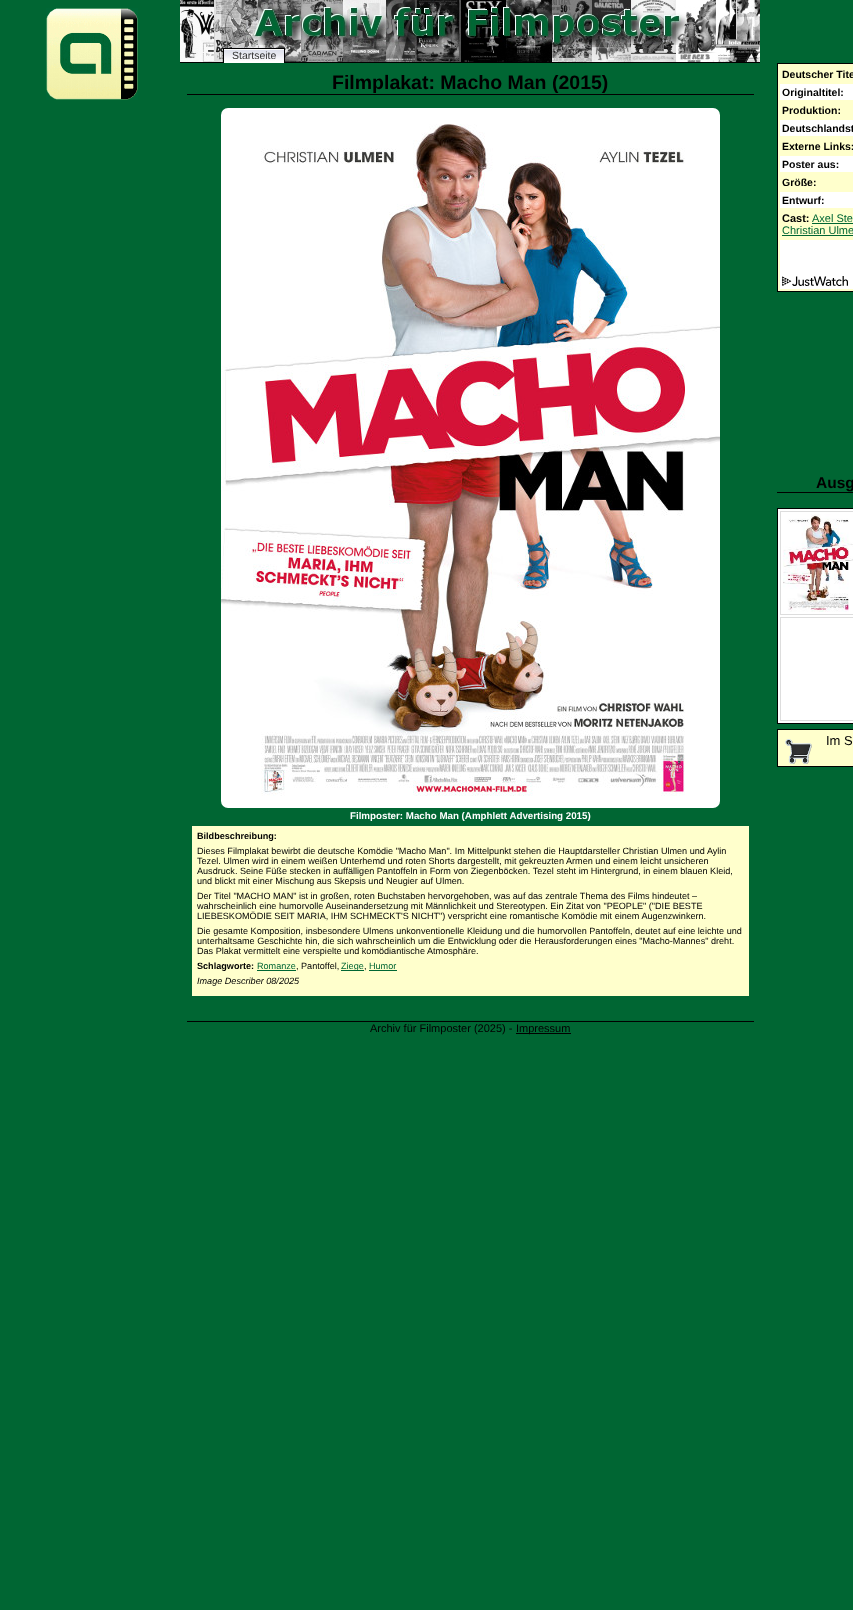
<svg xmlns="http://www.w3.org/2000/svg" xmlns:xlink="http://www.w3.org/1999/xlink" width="853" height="1610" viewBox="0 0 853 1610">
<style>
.cls-1{font:10.5px Liberation Sans;fill:#333333}
.cls-2{font:bold 19.5px Liberation Sans;fill:#000000}
.cls-3{font:bold 10.5px Liberation Sans;fill:#000000}
.cls-4{font:bold 11px Liberation Sans;fill:#000000}
.cls-5{font:11px Liberation Sans;fill:#006633}
.cls-6{font:bold 15.5px Liberation Sans;fill:#000000}
.cls-7{font:13px Liberation Sans;fill:#000000}
.cls-8{font:bold 9.75px Liberation Sans;fill:#ffffff}
.cls-9{font:bold 9.1px Liberation Sans;fill:#000000}
.cls-10{font:9.1px Liberation Sans;fill:#000000}
.cls-11{font:9.1px Liberation Sans;fill:#006633}
.cls-12{font:italic 9.1px Liberation Sans;fill:#000000}
.cls-13{font:11px Liberation Sans;fill:#000000}
</style>
<rect width="100%" height="100%" fill="#006633"/>
<image xlink:href="image0.png" x="46" y="8" width="92" height="92"/>
<rect fill="#000000" x="180" y="62" width="580" height="1"/>
<image xlink:href="image1.png" x="180" y="0" width="580" height="62"/>
<rect fill="#ffffff" x="224" y="49" width="60" height="14"/>
<image xlink:href="image2.png" x="224" y="50" width="60" height="11"/>
<rect fill="#000000" x="223" y="48" width="62" height="1"/>
<rect fill="#000000" x="284" y="48" width="1" height="15"/>
<rect fill="#000000" x="223" y="48" width="1" height="15"/>
<rect fill="#000000" x="187" y="94" width="567" height="1"/>
<rect fill="#ffffcc" stroke="#000000" x="777.5" y="63.5" width="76" height="228"/>
<rect fill="#ffffff" x="780" y="84" width="73" height="16"/>
<rect fill="#ffffff" x="780" y="120" width="73" height="16"/>
<rect fill="#ffffff" x="780" y="156" width="73" height="16"/>
<rect fill="#ffffff" x="780" y="192" width="73" height="16"/>
<rect fill="#006633" x="812" y="223" width="41" height="1"/>
<rect fill="#006633" x="782" y="235" width="71" height="1"/>
<rect fill="#ffffff" x="780" y="240" width="73" height="49"/>
<image xlink:href="image3.png" x="782" y="276" width="66" height="10"/>
<rect fill="#000000" x="777" y="492" width="76" height="1"/>
<rect fill="#ffffff" stroke="#000000" x="777.5" y="508.5" width="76" height="215"/>
<rect fill="none" stroke="#dddddd" x="780.5" y="511.5" width="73" height="103"/>
<image xlink:href="image4.png" x="783" y="514" width="70" height="98"/>
<rect fill="none" stroke="#dddddd" x="780.5" y="617.5" width="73" height="103"/>
<rect fill="#ffffcc" stroke="#000000" x="777.5" y="729.5" width="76" height="37"/>
<image xlink:href="image5.png" x="785" y="739" width="27" height="25"/>
<image xlink:href="image6.png" x="221" y="108" width="499" height="700"/>
<rect fill="#ffffcc" x="192" y="826" width="557" height="170"/>
<rect fill="#006633" x="257" y="970" width="39" height="1"/>
<rect fill="#006633" x="341" y="970" width="23" height="1"/>
<rect fill="#006633" x="369" y="970" width="28" height="1"/>
<rect fill="#000000" x="187" y="1021" width="567" height="1"/>
<rect fill="#000000" x="516" y="1033" width="55" height="1"/>
<text class="cls-1" x="232" y="59">Startseite</text>
<text class="cls-2" x="332" y="89">Filmplakat: Macho Man (2015)</text>
<text class="cls-3"><tspan x="782" y="78">Deutscher Tite</tspan><tspan x="782" y="96">Originaltitel:</tspan><tspan x="782" y="114">Produktion:</tspan><tspan x="782" y="132">Deutschlandst</tspan><tspan x="782" y="150">Externe Links:</tspan><tspan x="782" y="168">Poster aus:</tspan><tspan x="782" y="186">Größe:</tspan><tspan x="782" y="204">Entwurf:</tspan></text>
<text class="cls-4" x="782" y="222">Cast:</text>
<text class="cls-5" x="812" y="222">Axel Ste</text>
<text class="cls-5" x="782" y="234">Christian Ulme</text>
<text class="cls-6" x="816" y="488">Ausg</text>
<text class="cls-7" x="826" y="745">Im S</text>
<text class="cls-8" x="350" y="819">Filmposter: Macho Man (Amphlett Advertising 2015)</text>
<text class="cls-9" x="197" y="839">Bildbeschreibung:</text>
<text class="cls-10"><tspan x="197" y="854">Dieses Filmplakat bewirbt die deutsche Komödie "Macho Man". Im Mittelpunkt stehen die Hauptdarsteller Christian Ulmen und Aylin</tspan><tspan x="197" y="864">Tezel. Ulmen wird in einem weißen Unterhemd und roten Shorts dargestellt, mit gekreuzten Armen und einem leicht unsicheren</tspan><tspan x="197" y="874">Ausdruck. Seine Füße stecken in auffälligen Pantoffeln in Form von Ziegenböcken. Tezel steht im Hintergrund, in einem blauen Kleid,</tspan><tspan x="197" y="884">und blickt mit einer Mischung aus Skepsis und Neugier auf Ulmen.</tspan><tspan x="197" y="899">Der Titel "MACHO MAN" ist in großen, roten Buchstaben hervorgehoben, was auf das zentrale Thema des Films hindeutet –</tspan><tspan x="197" y="909">wahrscheinlich eine humorvolle Auseinandersetzung mit Männlichkeit und Stereotypen. Ein Zitat von "PEOPLE" ("DIE BESTE</tspan><tspan x="197" y="919">LIEBESKOMÖDIE SEIT MARIA, IHM SCHMECKT'S NICHT") verspricht eine romantische Komödie mit einem Augenzwinkern.</tspan><tspan x="197" y="934">Die gesamte Komposition, insbesondere Ulmens unkonventionelle Kleidung und die humorvollen Pantoffeln, deutet auf eine leichte und</tspan><tspan x="197" y="944">unterhaltsame Geschichte hin, die sich wahrscheinlich um die Entwicklung oder die Herausforderungen eines "Macho-Mannes" dreht.</tspan><tspan x="197" y="954">Das Plakat vermittelt eine verspielte und komödiantische Atmosphäre.</tspan></text>
<text class="cls-9" x="197" y="969">Schlagworte:</text>
<text class="cls-11" x="257" y="969">Romanze</text>
<text class="cls-10" x="296" y="969">, Pantoffel,</text>
<text class="cls-11" x="341" y="969">Ziege</text>
<text class="cls-10" x="364" y="969">,</text>
<text class="cls-11" x="369" y="969">Humor</text>
<text class="cls-12" x="197" y="984">Image Describer 08/2025</text>
<text class="cls-13" x="370" y="1032">Archiv für Filmposter (2025) -</text>
<text class="cls-13" x="516" y="1032">Impressum</text>
</svg>
